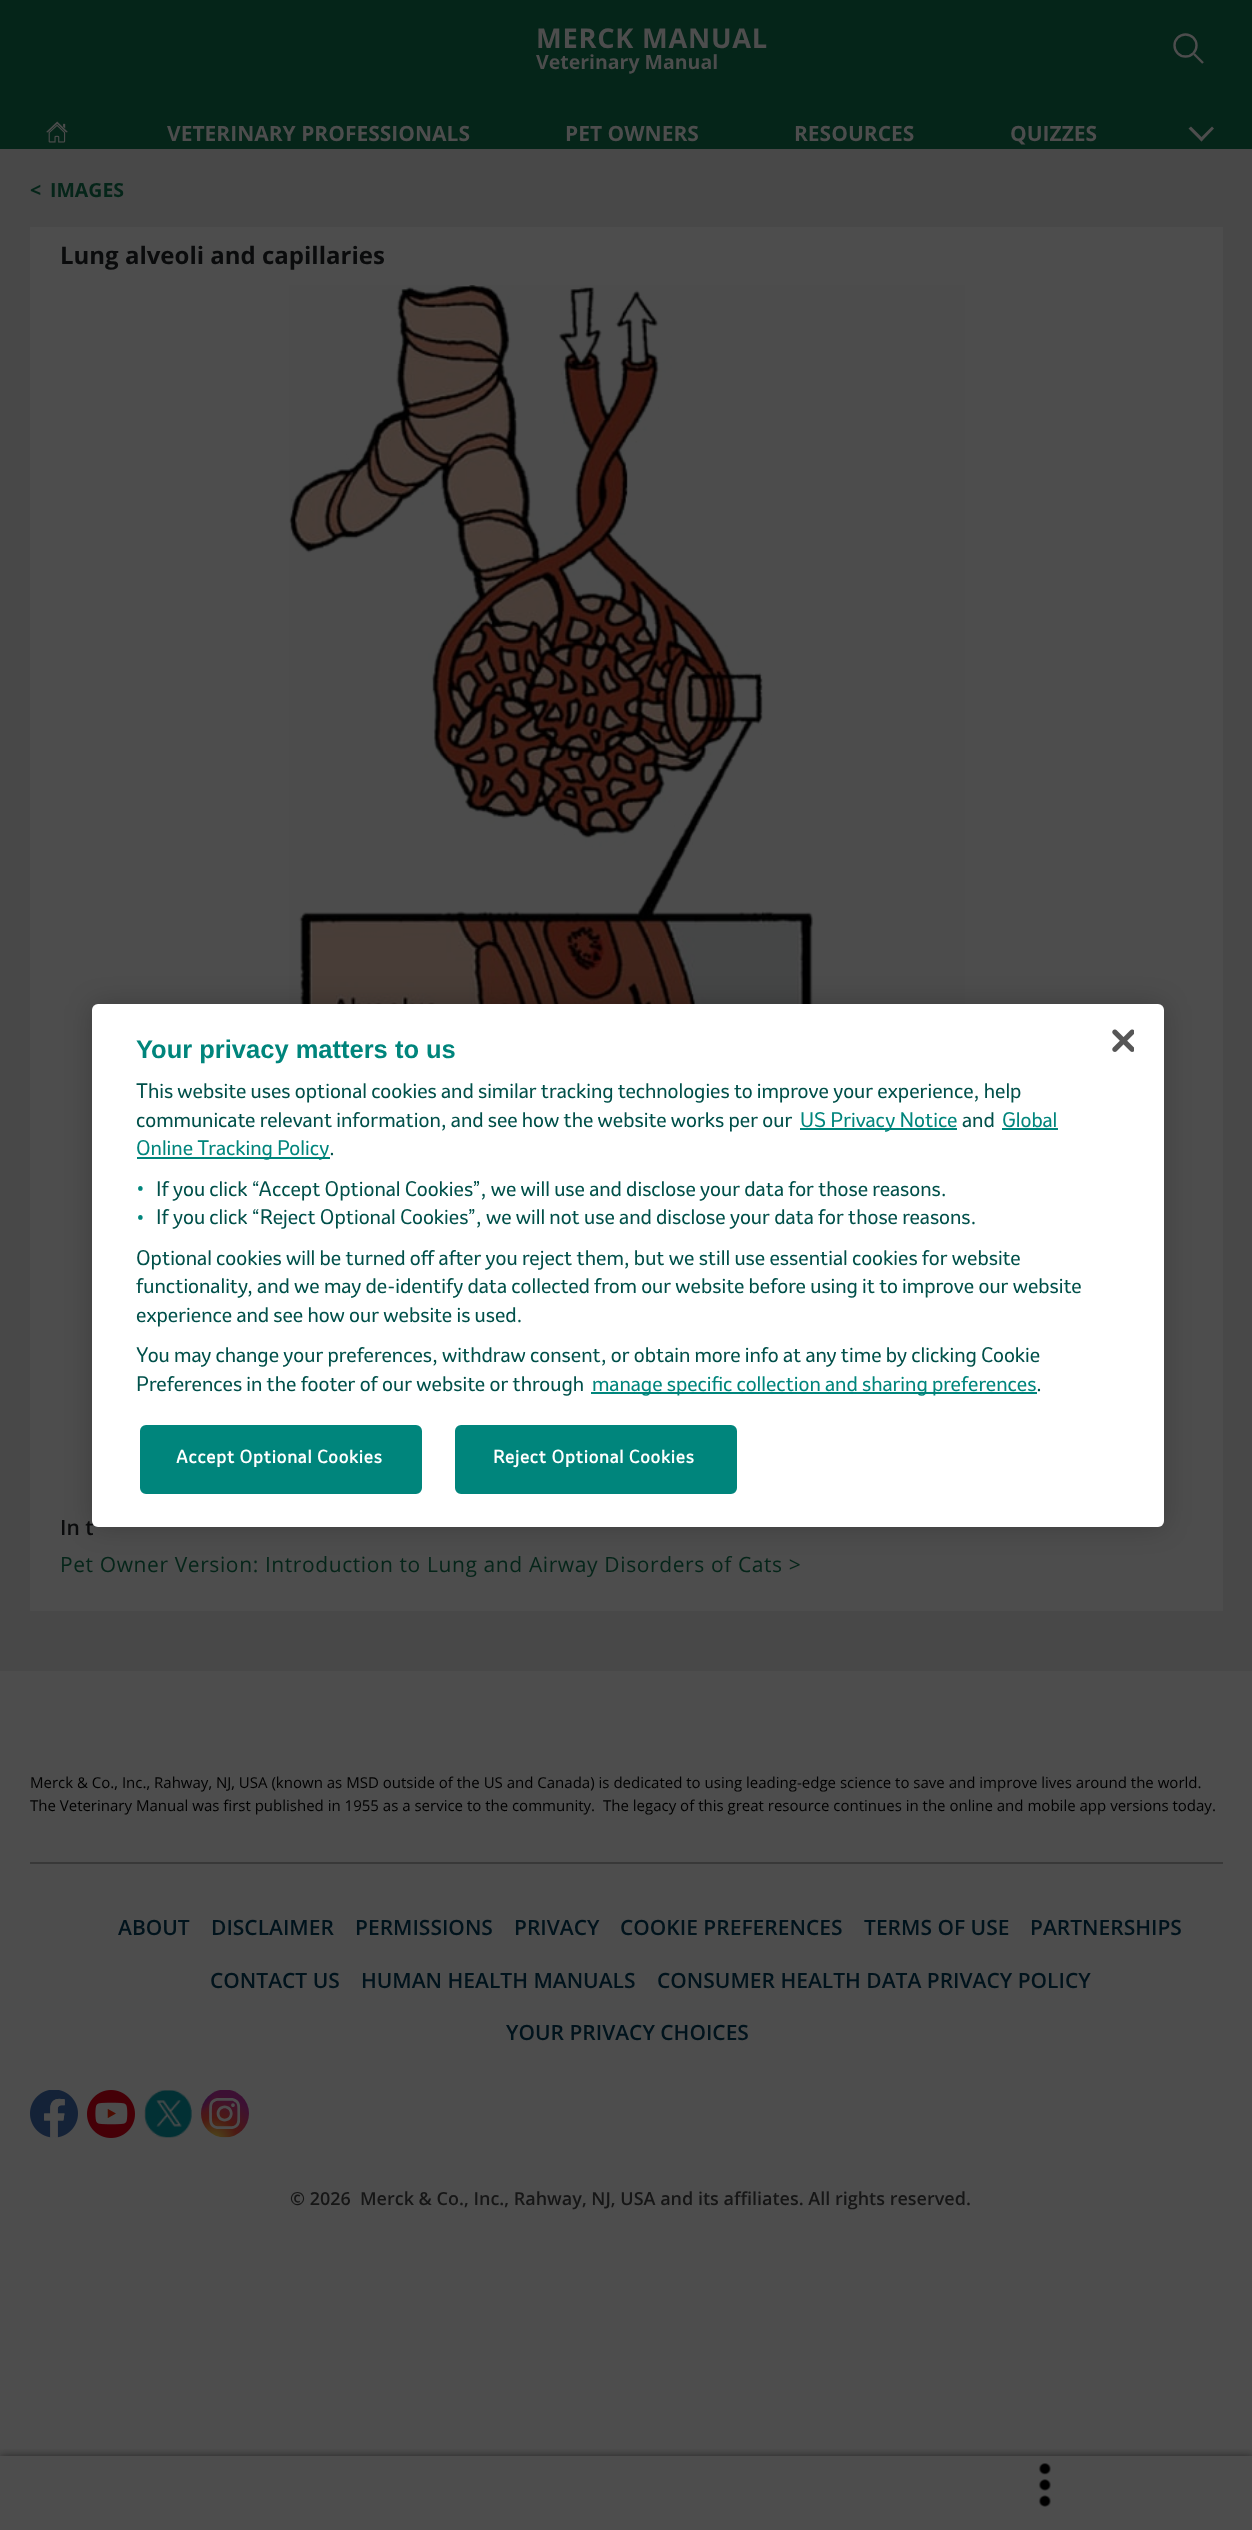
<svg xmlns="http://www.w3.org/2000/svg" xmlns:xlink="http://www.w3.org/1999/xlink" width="1252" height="2530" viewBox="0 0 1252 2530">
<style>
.cls-1{font:bold 27.25px Open Sans;letter-spacing:0.75px;fill:#4d4d4d}
.cls-2{font:bold 19.5px Open Sans;fill:#4d4d4d}
.cls-3{font:bold 21px Open Sans;fill:#4d4d4d}
.cls-4{font:bold 19.5px Open Sans;fill:#052519}
.cls-5{font:bold 24px Open Sans;fill:#0a0b0c}
.cls-6{font:600 21px Open Sans;fill:#0a0b0c}
.cls-7{font:21px Open Sans;letter-spacing:0.6px;fill:#052519}
.cls-8{font:15px Open Sans;fill:#000000}
.cls-9{font:600 21px Open Sans;fill:#00131c}
.cls-10{font:600 18px Open Sans;fill:#161616}
.cls-11{font:bold 25.5px Liberation Sans;fill:#00857c}
.cls-12{font:19.5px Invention;fill:#00504a}
.cls-13{font:19.5px Invention;fill:#00857c}
.cls-14{font:23px Invention;fill:#00857c}
.cls-15{font:bold 17px Invention;letter-spacing:0.85px;fill:#ffffff}
</style>
<defs>
<clipPath id="clip1"><rect x="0" y="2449" width="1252" height="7"/></clipPath>
</defs>
<rect width="100%" height="100%" fill="#484848"/>
<rect fill="#052519" x="0" y="0" width="1252" height="149"/>
<circle fill="none" stroke="#4d4d4d" stroke-width="2.4" cx="1185.5" cy="45.5" r="11"/>
<path fill="none" stroke="#4d4d4d" stroke-width="2.4" d="M1203 63L1194 54"/>
<image xlink:href="image0.png" x="46" y="121" width="22" height="22"/>
<path fill="#4d4d4d" d="M1212 126.5L1214 128.5L1201.5 141.5L1199.5 139Z"/>
<path fill="#4d4d4d" d="M1191 126.5L1203.5 139L1201.5 141.5L1188.5 128.5Z"/>
<rect fill="#4d4d4d" x="30" y="227" width="1193" height="1384"/>
<image xlink:href="image1.png" x="289" y="285" width="676" height="719"/>
<rect fill="#4d4d4d" x="0" y="1671" width="1252" height="859"/>
<rect fill="#383838" x="30" y="1862" width="1193" height="2"/>
<image xlink:href="image2.png" x="30" y="2090" width="48" height="48"/>
<image xlink:href="image3.png" x="87" y="2090" width="48" height="48"/>
<image xlink:href="image4.png" x="144" y="2090" width="48" height="48"/>
<image xlink:href="image5.png" x="201" y="2090" width="48" height="48"/>
<g clip-path="url(#clip1)">
<rect fill="#000000" fill-opacity="0.5" filter="blur(4px)" x="0" y="2456" width="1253" height="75"/>
</g>
<image xlink:href="image6.png" x="1038" y="2463" width="13" height="44"/>
<rect fill="#000000" fill-opacity="0.2" filter="blur(13.5px)" x="92" y="1004" width="1072" height="523" rx="6"/>
<text class="cls-1" x="536" y="48">MERCK MANUAL</text>
<text class="cls-2" x="536" y="69">Veterinary Manual</text>
<text class="cls-3" x="167" y="141">VETERINARY PROFESSIONALS</text>
<text class="cls-3" x="565" y="141">PET OWNERS</text>
<text class="cls-3" x="794" y="141">RESOURCES</text>
<text class="cls-3" x="1010" y="141">QUIZZES</text>
<text class="cls-4" x="30" y="197">&lt;</text>
<text class="cls-4" x="50" y="197">IMAGES</text>
<text class="cls-5" x="60" y="264">Lung alveoli and capillaries</text>
<text class="cls-6" x="60" y="1535">In t</text>
<text class="cls-7" x="60" y="1572">Pet Owner Version: Introduction to Lung and Airway Disorders of Cats &gt;</text>
<text class="cls-8" xml:space="preserve"><tspan x="30" y="1788">Merck &amp; Co., Inc., Rahway, NJ, USA (known as MSD outside of the US and Canada) is dedicated to using leading-edge science to save and improve lives around the world.</tspan><tspan x="30" y="1811">The Veterinary Manual was first published in 1955 as a service to the community.  The legacy of this great resource continues in the online and mobile app versions today.</tspan></text>
<text class="cls-9" x="118" y="1935">ABOUT</text>
<text class="cls-9" x="211" y="1935">DISCLAIMER</text>
<text class="cls-9" x="355" y="1935">PERMISSIONS</text>
<text class="cls-9" x="514" y="1935">PRIVACY</text>
<text class="cls-9" x="620" y="1935">COOKIE PREFERENCES</text>
<text class="cls-9" x="864" y="1935">TERMS OF USE</text>
<text class="cls-9" x="1030" y="1935">PARTNERSHIPS</text>
<text class="cls-9" x="210" y="1988">CONTACT US</text>
<text class="cls-9" x="361" y="1988">HUMAN HEALTH MANUALS</text>
<text class="cls-9" x="657" y="1988">CONSUMER HEALTH DATA PRIVACY POLICY</text>
<text class="cls-9" x="506" y="2040">YOUR PRIVACY CHOICES</text>
<text class="cls-10" x="290" y="2205">© 2026</text>
<text class="cls-10" x="360" y="2205">Merck &amp; Co., Inc., Rahway, NJ, USA and its affiliates. All rights reserved.</text>
<rect fill="#ffffff" x="92" y="1004" width="1072" height="523" rx="6"/>
<text class="cls-11" x="136" y="1058">Your privacy matters to us</text>
<text class="cls-12"><tspan x="136" y="1098">This website uses optional cookies and similar tracking technologies to improve your experience, help</tspan><tspan x="136" y="1127">communicate relevant information, and see how the website works per our</tspan></text>
<rect fill="#00857c" x="800" y="1128" width="157" height="2"/>
<text class="cls-13" x="800" y="1127">US Privacy Notice</text>
<text class="cls-12" x="962" y="1127">and</text>
<text class="cls-13" x="1002" y="1127">Global</text>
<rect fill="#00857c" x="1002" y="1128" width="56" height="2"/>
<rect fill="#00857c" x="137" y="1157" width="193" height="2"/>
<text class="cls-13" x="136" y="1155">Online Tracking Policy</text>
<text class="cls-12" x="329" y="1155">.</text>
<text class="cls-14" x="136" y="1195">•</text>
<text class="cls-12" x="156" y="1196">If you click “Accept Optional Cookies”, we will use and disclose your data for those reasons.</text>
<text class="cls-14" x="136" y="1224">•</text>
<text class="cls-12" x="156" y="1224">If you click “Reject Optional Cookies”, we will not use and disclose your data for those reasons.</text>
<text class="cls-12"><tspan x="136" y="1265">Optional cookies will be turned off after you reject them, but we still use essential cookies for website</tspan><tspan x="136" y="1293">functionality, and we may de-identify data collected from our website before using it to improve our website</tspan><tspan x="136" y="1322">experience and see how our website is used.</tspan></text>
<text class="cls-12"><tspan x="136" y="1362">You may change your preferences, withdraw consent, or obtain more info at any time by clicking Cookie</tspan><tspan x="136" y="1391">Preferences in the footer of our website or through</tspan></text>
<rect fill="#00857c" x="591" y="1392" width="446" height="2"/>
<text class="cls-13" x="592" y="1391">manage specific collection and sharing preferences</text>
<text class="cls-12" x="1036" y="1391">.</text>
<image xlink:href="image7.png" x="1112" y="1029" width="22" height="23"/>
<rect fill="#00857c" stroke="#00857c" stroke-width="2" x="141" y="1426" width="280" height="67" rx="5"/>
<text class="cls-15" x="176" y="1463">Accept Optional Cookies</text>
<rect fill="#00857c" stroke="#00857c" stroke-width="2" x="456" y="1426" width="280" height="67" rx="5"/>
<text class="cls-15" x="493" y="1463">Reject Optional Cookies</text>
</svg>
